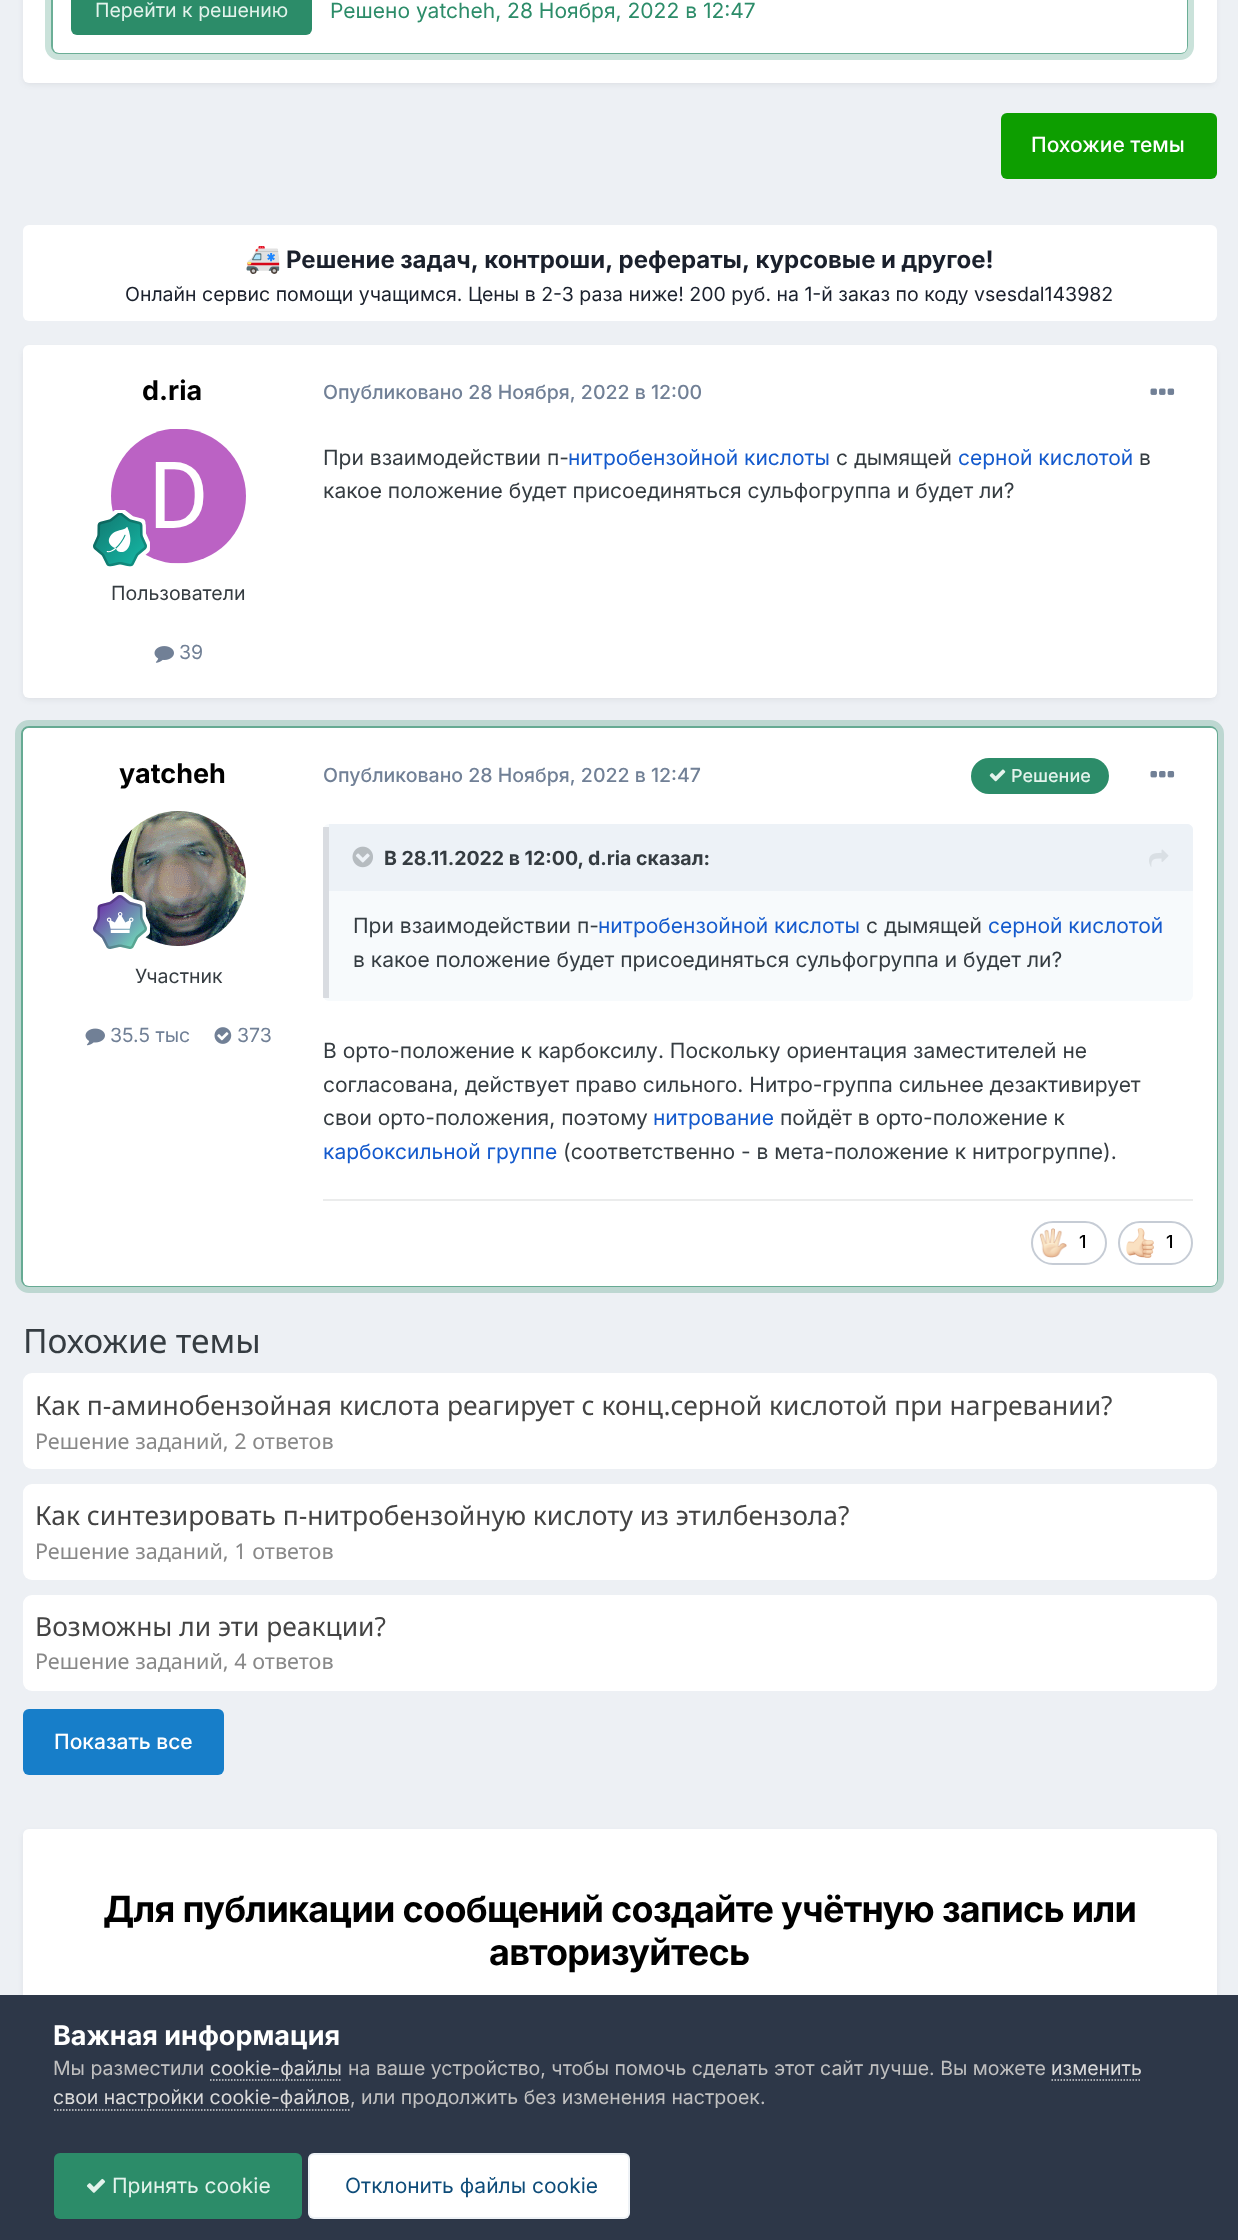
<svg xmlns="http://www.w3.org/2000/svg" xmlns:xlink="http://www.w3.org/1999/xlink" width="1238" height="2240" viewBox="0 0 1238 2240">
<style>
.cls-1{font:19.5px Inter;fill:#e3f3ec}
.cls-2{font:21px Inter;fill:#2c8c69}
.cls-3{font:500 21px Inter;fill:#ffffff}
.cls-4{font:bold 29px Noto Color Emoji;fill:#1a202c}
.cls-5{font:bold 24px Inter;fill:#1a202c}
.cls-6{font:19.5px Inter;fill:#1a202c}
.cls-7{font:bold 27px Inter;fill:#000000}
.cls-8{font:19.5px Inter;fill:#353c41}
.cls-9{font:19.5px Inter;fill:#718096}
.cls-10{font:500 19.5px Inter;fill:#718096}
.cls-11{font:21px Inter;fill:#353c41}
.cls-12{font:21px Inter;fill:#145acd}
.cls-13{font:500 18px Inter;fill:#e3f3ec}
.cls-14{font:bold 19.5px Inter;fill:#353c41}
.cls-15{font:500 18px Inter;fill:#000000}
.cls-16{font:33.5px Noto Sans;fill:#353c41}
.cls-17{font:26.4px Noto Sans;fill:#444444}
.cls-18{font:21.6px Noto Sans;fill:#888888}
.cls-19{font:bold 36px Inter;letter-spacing:-0.72px;fill:#000000}
.cls-20{font:bold 27px Inter;fill:#ffffff}
.cls-21{font:19.5px Inter;fill:#c0c0c0}
.cls-22{font:19.5px Inter;fill:#dadada}
.cls-23{font:21px Inter;fill:#e3f3ec}
.cls-24{font:21px Inter;fill:#0e4c79}
</style>
<rect width="100%" height="100%" fill="#edf0f4"/>
<rect fill="#2d3748" fill-opacity="0.1" filter="blur(3px)" x="24" y="-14" width="1191" height="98" rx="5"/>
<rect fill="#ffffff" x="23" y="-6" width="1194" height="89" rx="6"/>
<rect fill="none" stroke="#cae2da" stroke-width="8" x="49" y="-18" width="1141" height="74" rx="10"/>
<rect fill="none" stroke="#2c8c69" stroke-opacity="0.6" stroke-width="2" x="52" y="-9" width="1135" height="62" rx="7"/>
<rect fill="#ffffff" x="53" y="-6" width="1134" height="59" rx="6"/>
<rect fill="#2c8c69" x="71" y="-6" width="241" height="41" rx="6"/>
<rect fill="#0d9e00" x="1001" y="113" width="216" height="66" rx="6"/>
<rect fill="#ffffff" x="23" y="225" width="1194" height="96" rx="6"/>
<rect fill="#2d3748" fill-opacity="0.1" filter="blur(3px)" x="24" y="350" width="1191" height="349" rx="5"/>
<rect fill="#ffffff" x="23" y="345" width="1194" height="353" rx="6"/>
<image xlink:href="image0.png" x="111" y="429" width="135" height="135"/>
<image xlink:href="image1.png" x="93" y="510" width="57" height="57"/>
<image xlink:href="image2.png" x="154" y="646" width="20" height="17"/>
<image xlink:href="image3.png" x="1150" y="388" width="25" height="7"/>
<rect fill="none" stroke="#bdd7d1" stroke-width="8" x="19" y="724" width="1201" height="565" rx="10"/>
<rect fill="none" stroke="#2c8c69" stroke-opacity="0.6" stroke-width="2" x="22" y="727" width="1195" height="559" rx="7"/>
<rect fill="#ffffff" x="23" y="728" width="1194" height="558" rx="6"/>
<image xlink:href="image4.png" x="111" y="811" width="135" height="135"/>
<image xlink:href="image5.png" x="93" y="892" width="57" height="57"/>
<image xlink:href="image6.png" x="85" y="1028" width="20" height="18"/>
<image xlink:href="image7.png" x="214" y="1027" width="18" height="17"/>
<rect fill="#2c8c69" x="971" y="758" width="138" height="36" rx="18"/>
<image xlink:href="image8.png" x="989" y="769" width="17" height="13"/>
<image xlink:href="image9.png" x="1150" y="771" width="25" height="7"/>
<rect fill="#f7fafc" x="323" y="824" width="870" height="177" rx="6"/>
<rect fill="#2d3748" fill-opacity="0.15" x="323" y="827" width="6" height="171"/>
<path fill="#edf2f7" d="M329 824H1187C1190.5 824 1193 826.5 1193 830V891H329Z"/>
<image xlink:href="image10.png" x="352" y="846" width="21" height="22"/>
<image xlink:href="image11.png" x="1149" y="849" width="20" height="18"/>
<rect fill="#ebecec" x="323" y="1199" width="870" height="2"/>
<rect fill="none" stroke="#c6ccd5" stroke-width="2" x="1032" y="1222" width="74" height="42" rx="21"/>
<image xlink:href="image12.png" x="1039" y="1228" width="28" height="30"/>
<rect fill="none" stroke="#c6ccd5" stroke-width="2" x="1119" y="1222" width="73" height="42" rx="21"/>
<image xlink:href="image13.png" x="1126" y="1228" width="28" height="30"/>
<rect fill="#ffffff" x="23" y="1373" width="1194" height="96" rx="9"/>
<rect fill="#ffffff" x="23" y="1484" width="1194" height="96" rx="9"/>
<rect fill="#ffffff" x="23" y="1595" width="1194" height="96" rx="9"/>
<rect fill="#177ec9" x="23" y="1709" width="201" height="66" rx="6"/>
<rect fill="#2d3748" fill-opacity="0.1" filter="blur(3px)" x="24" y="1833" width="1191" height="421" rx="5"/>
<rect fill="#ffffff" x="23" y="1829" width="1194" height="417" rx="6"/>
<rect fill="#2d3748" x="0" y="1995" width="1238" height="245"/>
<path fill="none" stroke="#dadada" stroke-width="1.5" stroke-dasharray="1.5 1.5" d="M210 2080H342"/>
<path fill="none" stroke="#dadada" stroke-width="1.5" stroke-dasharray="1.5 1.5" d="M1051.5 2080H1141.5"/>
<path fill="none" stroke="#dadada" stroke-width="1.5" stroke-dasharray="1.5 1.5" d="M54 2110H351"/>
<rect fill="#2c8c69" x="54" y="2153" width="248" height="66" rx="6"/>
<image xlink:href="image14.png" x="86" y="2178" width="20" height="15"/>
<rect fill="#ffffff" x="308" y="2153" width="322" height="66" rx="6"/>
<rect fill="none" stroke="#0e4c79" stroke-opacity="0.07" stroke-width="2" x="309" y="2154" width="320" height="64" rx="5"/>
<text class="cls-1" x="95" y="17">Перейти к решению</text>
<text class="cls-2" x="330" y="18">Решено yatcheh, 28 Ноября, 2022 в 12:47</text>
<text class="cls-3" x="1031" y="152">Похожие темы</text>
<text class="cls-4" x="245" y="268">🚑</text>
<text class="cls-5" x="286" y="268" word-spacing="-0.25">Решение задач, контроши, рефераты, курсовые и другое!</text>
<text class="cls-6" x="125" y="301">Онлайн сервис помощи учащимся. Цены в 2-3 раза ниже! 200 руб. на 1-й заказ по коду vsesdal143982</text>
<text class="cls-7" x="142" y="400">d.ria</text>
<text class="cls-8" x="111" y="600">Пользователи</text>
<text class="cls-9" x="179" y="659">39</text>
<text class="cls-10" x="323" y="399">Опубликовано 28 Ноября, 2022 в 12:00</text>
<text class="cls-11" x="323" y="465">При взаимодействии п-</text>
<text class="cls-12" x="568" y="465">нитробензойной кислоты</text>
<text class="cls-11" x="836" y="465">с дымящей</text>
<text class="cls-12" x="958" y="465">серной кислотой</text>
<text class="cls-11" x="1139" y="465">в</text>
<text class="cls-11" x="323" y="498">какое положение будет присоединяться сульфогруппа и будет ли?</text>
<text class="cls-7" x="119" y="783">yatcheh</text>
<text class="cls-8" x="135" y="983">Участник</text>
<text class="cls-9" x="110" y="1042">35.5 тыс</text>
<text class="cls-9" x="237" y="1042">373</text>
<text class="cls-10" x="323" y="782">Опубликовано 28 Ноября, 2022 в 12:47</text>
<text class="cls-13" x="1011" y="782">Решение</text>
<text class="cls-14" x="384" y="865">В 28.11.2022 в 12:00,</text>
<text class="cls-14" x="588" y="865">d.ria сказал:</text>
<text class="cls-11" x="353" y="933">При взаимодействии п-</text>
<text class="cls-12" x="598" y="933">нитробензойной кислоты</text>
<text class="cls-11" x="866" y="933">с дымящей</text>
<text class="cls-12" x="988" y="933">серной кислотой</text>
<text class="cls-11" x="353" y="967">в какое положение будет присоединяться сульфогруппа и будет ли?</text>
<text class="cls-11"><tspan x="323" y="1058">В орто-положение к карбоксилу. Поскольку ориентация заместителей не</tspan><tspan x="323" y="1092">согласована, действует право сильного. Нитро-группа сильнее дезактивирует</tspan><tspan x="323" y="1125">свои орто-положения, поэтому</tspan></text>
<text class="cls-12" x="653" y="1125">нитрование</text>
<text class="cls-11" x="780" y="1125">пойдёт в орто-положение к</text>
<text class="cls-12" x="323" y="1159">карбоксильной группе</text>
<text class="cls-11" x="563" y="1159">(соответственно - в мета-положение к нитрогруппе).</text>
<text class="cls-15" x="1079" y="1248">1</text>
<text class="cls-15" x="1166" y="1248">1</text>
<text class="cls-16" x="23" y="1353">Похожие темы</text>
<text class="cls-17" x="35" y="1415">Как п-аминобензойная кислота реагирует с конц.серной кислотой при нагревании?</text>
<text class="cls-18" x="35" y="1449">Решение заданий, 2 ответов</text>
<text class="cls-17" x="35" y="1525">Как синтезировать п-нитробензойную кислоту из этилбензола?</text>
<text class="cls-18" x="35" y="1559">Решение заданий, 1 ответов</text>
<text class="cls-17" x="35" y="1636">Возможны ли эти реакции?</text>
<text class="cls-18" x="35" y="1669">Решение заданий, 4 ответов</text>
<text class="cls-3" x="54" y="1749">Показать все</text>
<text class="cls-19" x="103" y="1922">Для публикации сообщений создайте учётную запись или</text>
<text class="cls-19" x="489" y="1965">авторизуйтесь</text>
<text class="cls-20" x="53" y="2045">Важная информация</text>
<text class="cls-21" x="53" y="2075">Мы разместили</text>
<text class="cls-22" x="210" y="2075">cookie-файлы</text>
<text class="cls-21" x="348" y="2075">на ваше устройство, чтобы помочь сделать этот сайт лучше. Вы можете</text>
<text class="cls-22" x="1051" y="2075">изменить</text>
<text class="cls-22" x="53" y="2104">свои настройки cookie-файлов</text>
<text class="cls-21" x="350" y="2104">, или продолжить без изменения настроек.</text>
<text class="cls-23" x="112" y="2193">Принять cookie</text>
<text class="cls-24" x="345" y="2193">Отклонить файлы сookie</text>
</svg>
